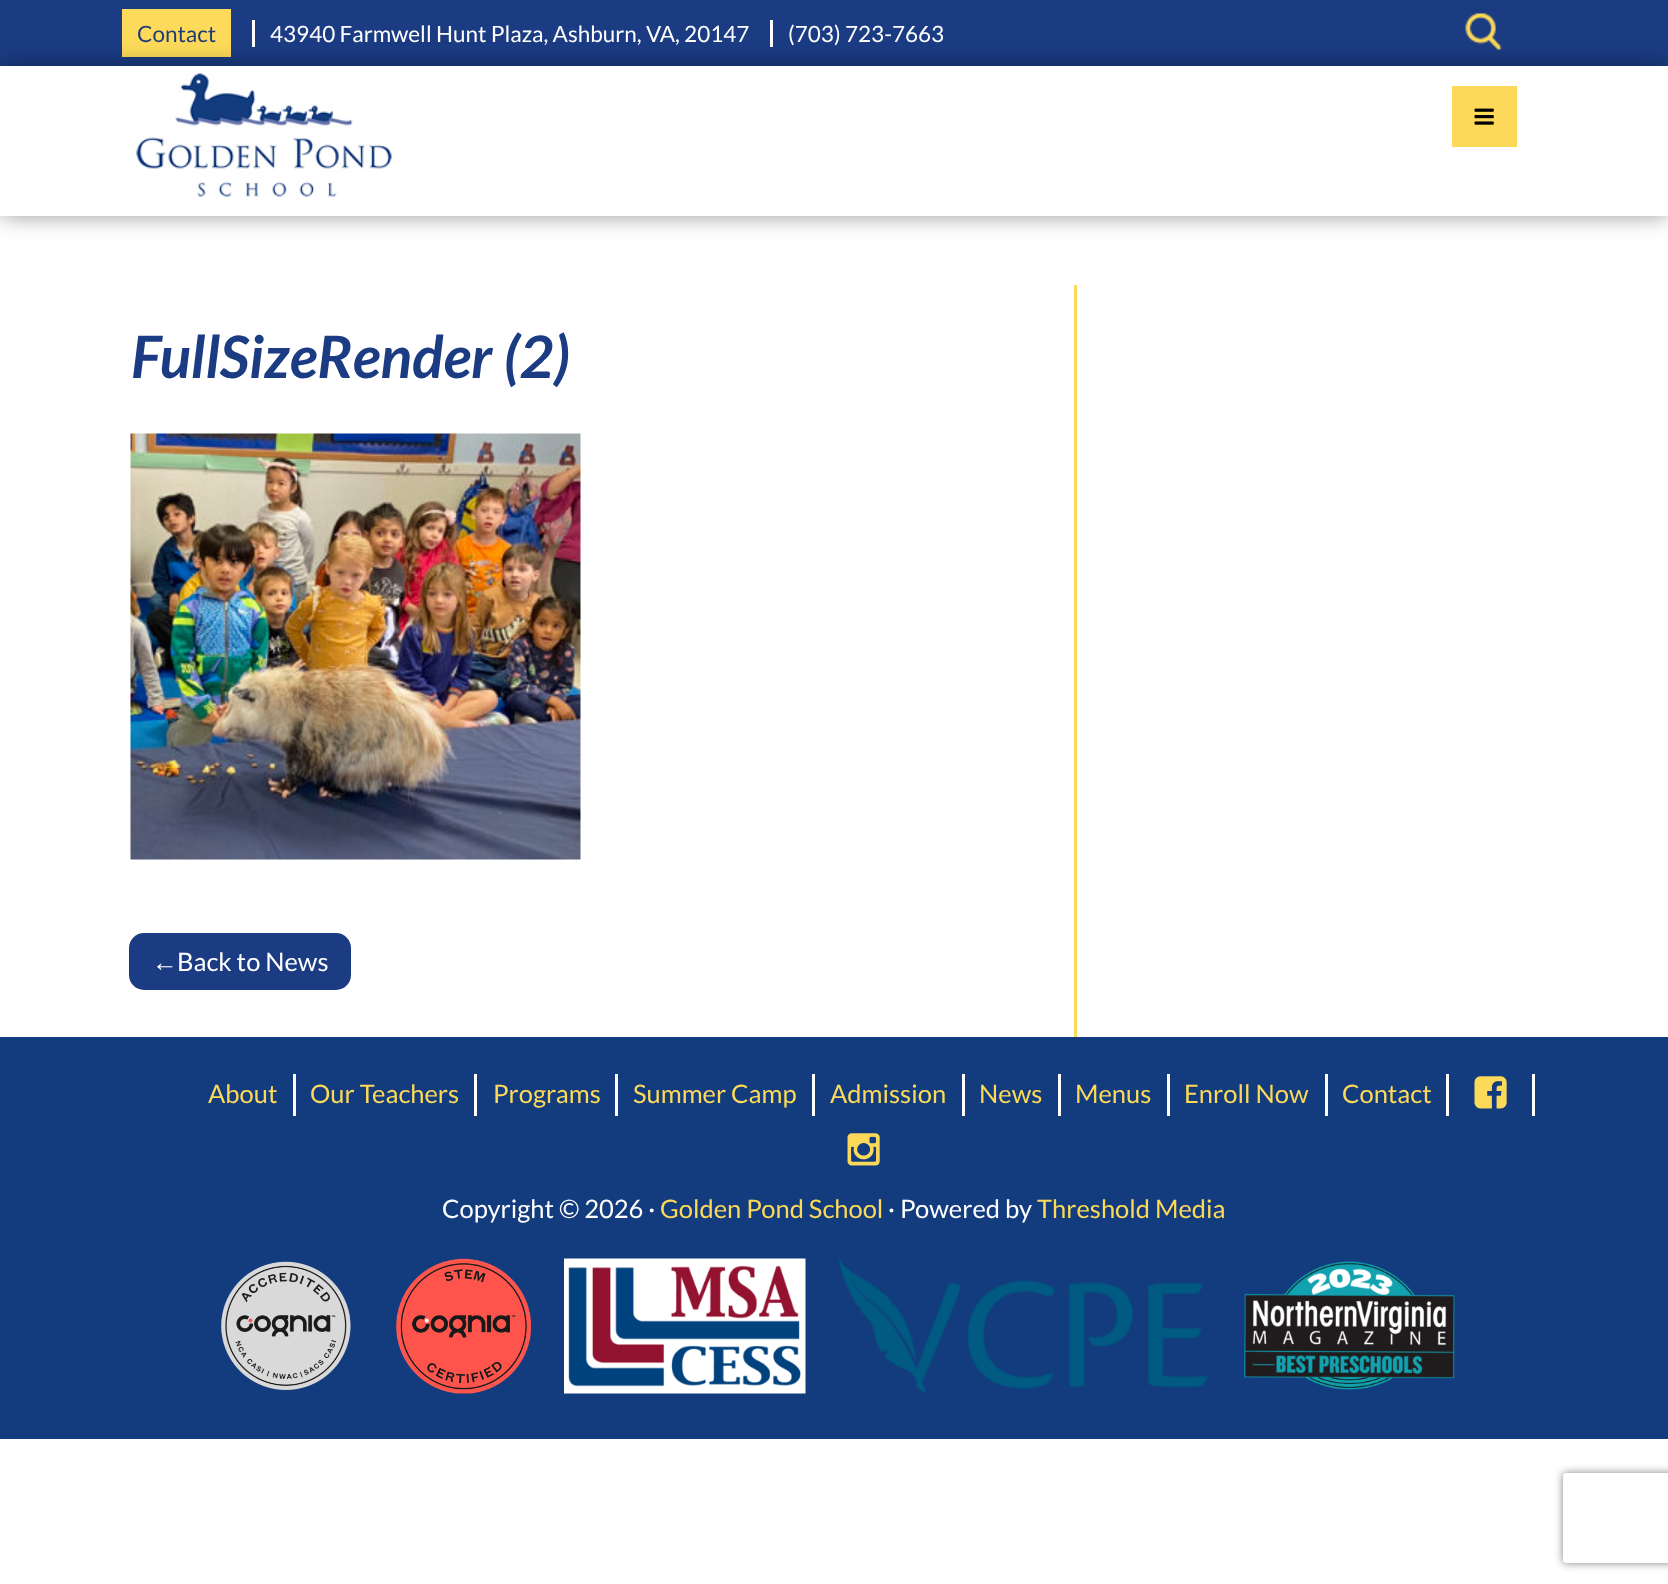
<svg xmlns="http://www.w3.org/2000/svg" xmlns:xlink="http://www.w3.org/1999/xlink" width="1668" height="1584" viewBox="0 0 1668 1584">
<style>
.cls-1{font:22.5px Lato;fill:#213d77}
.cls-2{font:22.5px Lato;fill:#ffffff}
.cls-3{font:italic bold 58.5px Lato;fill:#1b3c83}
.cls-4{font:25.5px Liberation Sans;fill:#ffffff}
.cls-5{font:25.5px Lato;fill:#ffffff}
.cls-6{font:25.5px Lato;fill:#fdd959}
</style>
<defs>
<clipPath id="clip1"><path d="M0 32H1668V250H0ZM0 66H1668V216H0Z" clip-rule="evenodd"/></clipPath>
<clipPath id="clip2"><path d="M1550 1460H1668V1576H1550ZM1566 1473H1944C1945.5 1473 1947 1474.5 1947 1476V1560C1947 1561.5 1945.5 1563 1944 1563H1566C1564.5 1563 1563 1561.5 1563 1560V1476C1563 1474.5 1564.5 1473 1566 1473Z" clip-rule="evenodd"/></clipPath>
</defs>
<rect width="100%" height="100%" fill="#ffffff"/>
<rect fill="#1b3c83" x="0" y="0" width="1668" height="66"/>
<rect fill="#ffffff" x="252" y="20" width="3" height="27"/>
<rect fill="#fdda59" x="122" y="9" width="109" height="48"/>
<rect fill="#ffffff" x="770" y="20" width="3" height="27"/>
<image xlink:href="image0.png" x="1465" y="13" width="37" height="37"/>
<path fill="#193879" d="M1464 10H1503C1506 10 1509 13 1509 16C1509 8 1503 9 1496 9H1470C1464 9 1458 8 1458 16C1458 13 1461 10 1464 10Z"/>
<g clip-path="url(#clip1)">
<rect fill="#000000" fill-opacity="0.4" filter="blur(11px)" x="0" y="66" width="1668" height="150"/>
</g>
<image xlink:href="image1.png" x="136" y="73" width="256" height="124"/>
<rect fill="#fdd959" x="1452" y="86" width="65" height="61"/>
<image xlink:href="image2.png" x="1474" y="108" width="20" height="17"/>
<rect fill="#fdd959" x="1074" y="285" width="3" height="752"/>
<image xlink:href="image3.png" x="130" y="433" width="451" height="427"/>
<rect fill="#1b3c83" x="129" y="933" width="222" height="57" rx="15"/>
<rect fill="#133c7e" x="0" y="1037" width="1668" height="402"/>
<rect fill="#ffffff" x="293" y="1074" width="3" height="42"/>
<rect fill="#ffffff" x="474" y="1074" width="3" height="42"/>
<rect fill="#ffffff" x="615" y="1074" width="3" height="42"/>
<rect fill="#ffffff" x="812" y="1074" width="3" height="42"/>
<rect fill="#ffffff" x="962" y="1074" width="3" height="42"/>
<rect fill="#ffffff" x="1058" y="1074" width="3" height="42"/>
<rect fill="#ffffff" x="1167" y="1074" width="3" height="42"/>
<rect fill="#ffffff" x="1325" y="1074" width="3" height="42"/>
<rect fill="#ffffff" x="1446" y="1074" width="3" height="42"/>
<rect fill="#ffffff" x="1532" y="1074" width="3" height="42"/>
<image xlink:href="image4.png" x="1474" y="1076" width="33" height="33"/>
<image xlink:href="image5.png" x="847" y="1133" width="33" height="33"/>
<image xlink:href="image6.png" x="221" y="1261" width="130" height="130"/>
<image xlink:href="image7.png" x="396" y="1258" width="135" height="136"/>
<image xlink:href="image8.png" x="564" y="1258" width="242" height="136"/>
<image xlink:href="image9.png" x="838" y="1259" width="370" height="135"/>
<image xlink:href="image10.png" x="1244" y="1261" width="211" height="129"/>
<g clip-path="url(#clip2)">
<rect fill="#808080" filter="blur(4px)" x="1563" y="1473" width="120" height="90" rx="3"/>
</g>
<text class="cls-1" x="137" y="42">Contact</text>
<text class="cls-2" x="270" y="42">43940 Farmwell Hunt Plaza, Ashburn, VA, 20147</text>
<text class="cls-2" x="788" y="42">(703) 723-7663</text>
<text class="cls-3" x="131" y="378">FullSizeRender (2)</text>
<text class="cls-4" x="152" y="971">←</text>
<text class="cls-5" x="177" y="971">Back to News</text>
<text class="cls-6" x="208" y="1103">About</text>
<text class="cls-6" x="310" y="1103">Our Teachers</text>
<text class="cls-6" x="493" y="1103">Programs</text>
<text class="cls-6" x="633" y="1103">Summer Camp</text>
<text class="cls-6" x="830" y="1103">Admission</text>
<text class="cls-6" x="979" y="1103">News</text>
<text class="cls-6" x="1075" y="1103">Menus</text>
<text class="cls-6" x="1184" y="1103">Enroll Now</text>
<text class="cls-6" x="1342" y="1103">Contact</text>
<text class="cls-5" x="442" y="1218">Copyright © 2026 ·</text>
<text class="cls-6" x="660" y="1218">Golden Pond School</text>
<text class="cls-5" x="888" y="1218">· Powered by</text>
<text class="cls-6" x="1037" y="1218">Threshold Media</text>
</svg>
